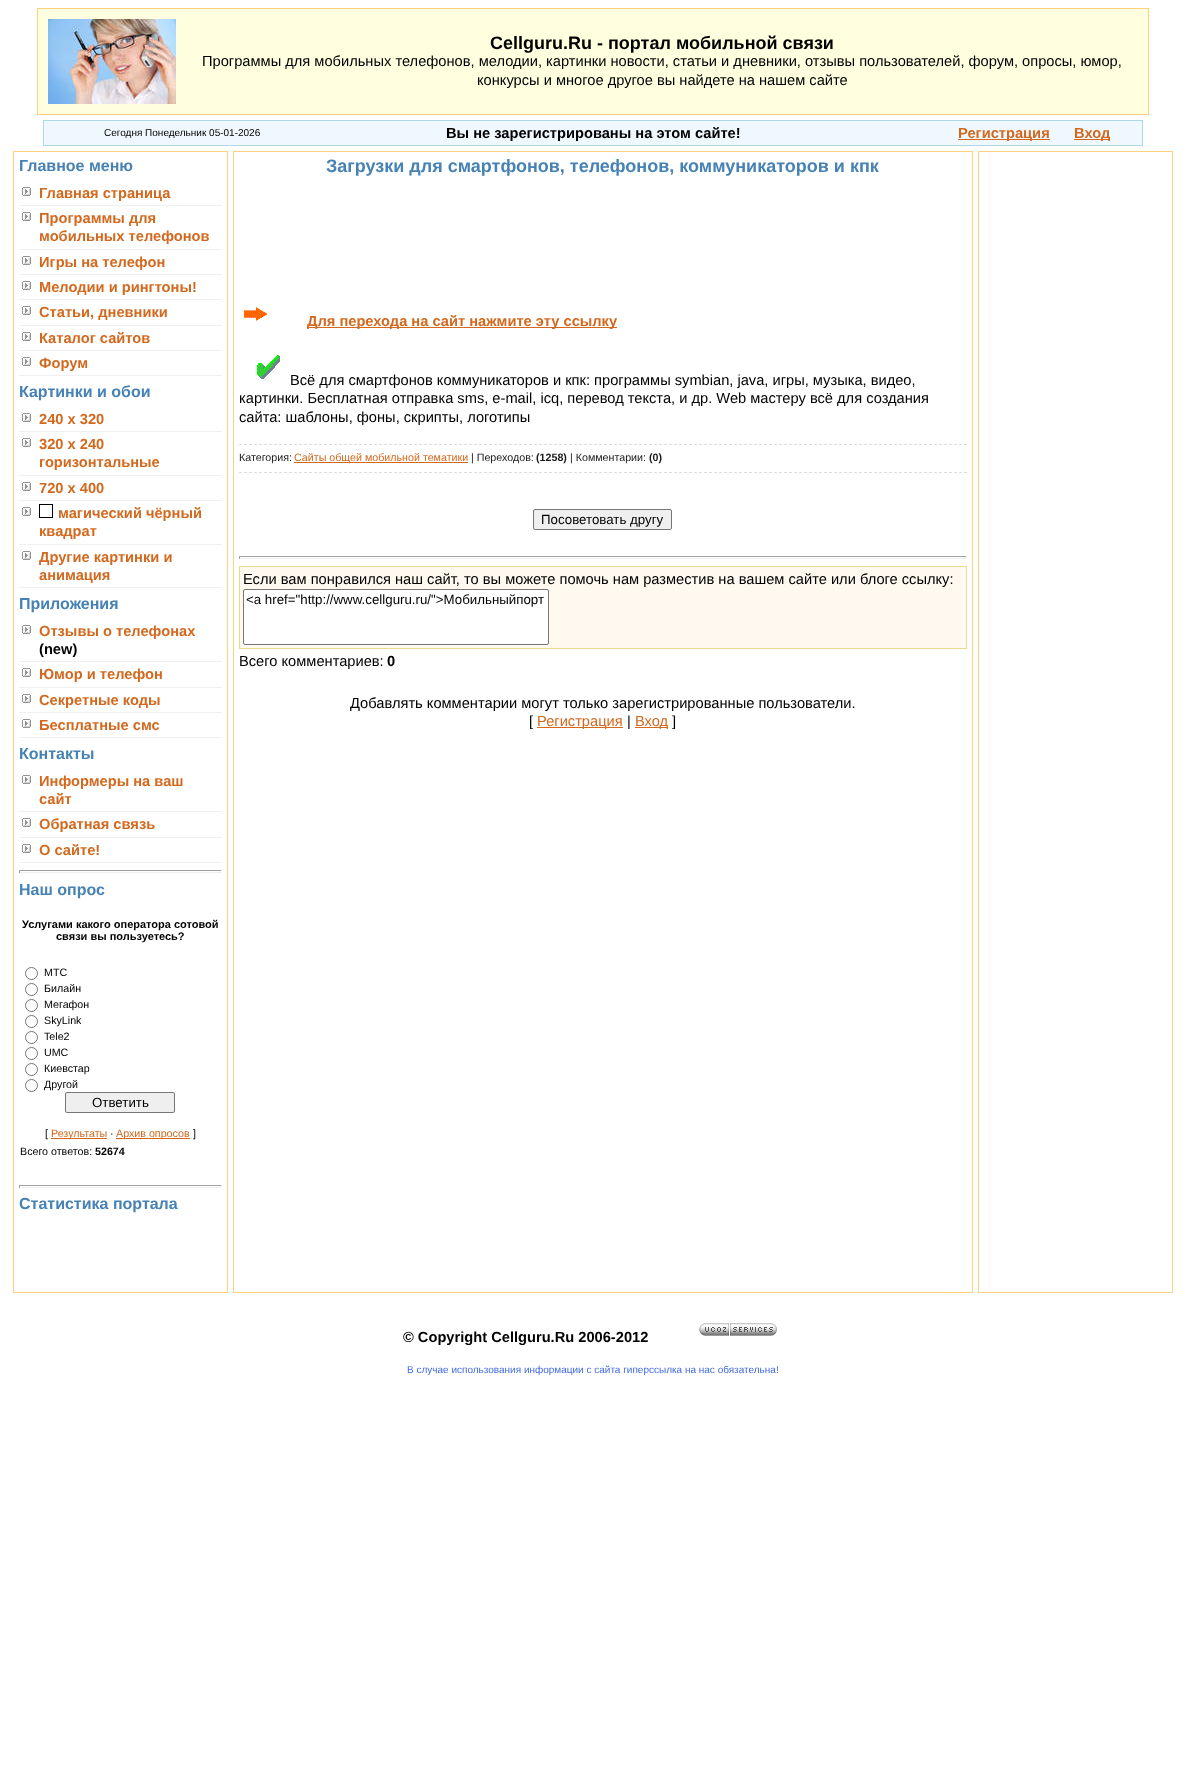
<svg xmlns="http://www.w3.org/2000/svg" xmlns:xlink="http://www.w3.org/1999/xlink" width="1186" height="1790" viewBox="0 0 1186 1790">
<style>
.cls-1{font:bold 18px Liberation Sans;fill:#000000}
.cls-2{font:14.67px Liberation Sans;fill:#000000}
.cls-3{font:10px Liberation Sans;fill:#000000}
.cls-4{font:bold 14.67px Liberation Sans;fill:#000000}
.cls-5{font:bold 14.67px Liberation Sans;fill:#d2691e}
.cls-6{font:bold 16px Liberation Sans;fill:#4682b4}
.cls-7{font:bold 11px Liberation Sans;fill:#000000}
.cls-8{font:10.7px Liberation Sans;fill:#000000}
.cls-9{font:13.3px Liberation Sans;fill:#000000}
.cls-10{font:10.7px Liberation Sans;fill:#d2691e}
.cls-11{font:bold 10.7px Liberation Sans;fill:#000000}
.cls-12{font:bold 18px Liberation Sans;fill:#4682b4}
.cls-13{font:10.7px Liberation Sans;fill:#1a1a1a}
.cls-14{font:bold 10.7px Liberation Sans;fill:#1a1a1a}
.cls-15{font:14.67px Liberation Sans;fill:#d2691e}
.cls-16{font:10px Liberation Sans;fill:#4169e1}
</style>
<rect width="100%" height="100%" fill="#ffffff"/>
<rect fill="#ffffe0" stroke="#ffd17b" x="37.5" y="8.5" width="1111" height="106"/>
<image xlink:href="image0.png" x="48" y="19" width="128" height="85"/>
<rect fill="#f0f8ff" stroke="#add8e6" x="43.5" y="120.5" width="1099" height="25"/>
<rect fill="#d2691e" x="958" y="139" width="92" height="1"/>
<rect fill="#d2691e" x="1074" y="139" width="36" height="1"/>
<rect fill="none" stroke="#ffd17b" x="13.5" y="151.5" width="214" height="1141"/>
<image xlink:href="image1.png" x="22" y="187" width="9" height="9"/>
<rect fill="#eff0f1" x="19" y="205" width="203" height="1"/>
<image xlink:href="image1.png" x="22" y="212" width="9" height="9"/>
<rect fill="#eff0f1" x="19" y="249" width="203" height="1"/>
<image xlink:href="image1.png" x="22" y="256" width="9" height="9"/>
<rect fill="#eff0f1" x="19" y="274" width="203" height="1"/>
<image xlink:href="image1.png" x="22" y="281" width="9" height="9"/>
<rect fill="#eff0f1" x="19" y="299" width="203" height="1"/>
<image xlink:href="image1.png" x="22" y="306" width="9" height="9"/>
<rect fill="#eff0f1" x="19" y="325" width="203" height="1"/>
<image xlink:href="image1.png" x="22" y="332" width="9" height="9"/>
<rect fill="#eff0f1" x="19" y="350" width="203" height="1"/>
<image xlink:href="image1.png" x="22" y="357" width="9" height="9"/>
<rect fill="#eff0f1" x="19" y="375" width="203" height="1"/>
<image xlink:href="image1.png" x="22" y="413" width="9" height="9"/>
<rect fill="#eff0f1" x="19" y="431" width="203" height="1"/>
<image xlink:href="image1.png" x="22" y="438" width="9" height="9"/>
<rect fill="#eff0f1" x="19" y="475" width="203" height="1"/>
<image xlink:href="image1.png" x="22" y="482" width="9" height="9"/>
<rect fill="#eff0f1" x="19" y="500" width="203" height="1"/>
<image xlink:href="image1.png" x="22" y="507" width="9" height="9"/>
<rect fill="#eff0f1" x="19" y="544" width="203" height="1"/>
<rect fill="none" stroke="#000000" x="39.5" y="504.5" width="13" height="13"/>
<image xlink:href="image1.png" x="22" y="551" width="9" height="9"/>
<rect fill="#eff0f1" x="19" y="587" width="203" height="1"/>
<image xlink:href="image1.png" x="22" y="625" width="9" height="9"/>
<rect fill="#eff0f1" x="19" y="661" width="203" height="1"/>
<image xlink:href="image1.png" x="22" y="668" width="9" height="9"/>
<rect fill="#eff0f1" x="19" y="687" width="203" height="1"/>
<image xlink:href="image1.png" x="22" y="694" width="9" height="9"/>
<rect fill="#eff0f1" x="19" y="712" width="203" height="1"/>
<image xlink:href="image1.png" x="22" y="719" width="9" height="9"/>
<rect fill="#eff0f1" x="19" y="737" width="203" height="1"/>
<image xlink:href="image1.png" x="22" y="775" width="9" height="9"/>
<rect fill="#eff0f1" x="19" y="811" width="203" height="1"/>
<image xlink:href="image1.png" x="22" y="818" width="9" height="9"/>
<rect fill="#eff0f1" x="19" y="837" width="203" height="1"/>
<image xlink:href="image1.png" x="22" y="844" width="9" height="9"/>
<rect fill="#eff0f1" x="19" y="862" width="203" height="1"/>
<rect fill="#9f9f9f" x="19" y="870" width="203" height="1"/>
<rect fill="#eeeeee" x="221" y="870" width="1" height="3"/>
<rect fill="#eeeeee" x="19" y="872" width="203" height="1"/>
<rect fill="#9f9f9f" x="19" y="870" width="1" height="3"/>
<circle fill="none" stroke="#767676" cx="31.5" cy="973.5" r="6"/>
<circle fill="none" stroke="#767676" cx="31.5" cy="989.5" r="6"/>
<circle fill="none" stroke="#767676" cx="31.5" cy="1005.5" r="6"/>
<circle fill="none" stroke="#767676" cx="31.5" cy="1021.5" r="6"/>
<circle fill="none" stroke="#767676" cx="31.5" cy="1037.5" r="6"/>
<circle fill="none" stroke="#767676" cx="31.5" cy="1053.5" r="6"/>
<circle fill="none" stroke="#767676" cx="31.5" cy="1069.5" r="6"/>
<circle fill="none" stroke="#767676" cx="31.5" cy="1085.5" r="6"/>
<rect fill="#efefef" stroke="#767676" x="65.5" y="1092.5" width="109" height="20" rx="1.5"/>
<rect fill="#d2691e" x="51" y="1138" width="56" height="1"/>
<rect fill="#d2691e" x="116" y="1138" width="74" height="1"/>
<rect fill="#9f9f9f" x="19" y="1185" width="203" height="1"/>
<rect fill="#eeeeee" x="221" y="1185" width="1" height="3"/>
<rect fill="#eeeeee" x="19" y="1187" width="203" height="1"/>
<rect fill="#9f9f9f" x="19" y="1185" width="1" height="3"/>
<rect fill="none" stroke="#ffd17b" x="233.5" y="151.5" width="739" height="1141"/>
<image xlink:href="image2.png" x="244" y="307" width="24" height="14"/>
<rect fill="#d2691e" x="307" y="327" width="310" height="1"/>
<image xlink:href="image3.png" x="257" y="355" width="23" height="24"/>
<path fill="none" stroke="#dddddd" stroke-dasharray="3 2" d="M239 444.5H967"/>
<path fill="none" stroke="#dddddd" stroke-dasharray="3 2" d="M239 472.5H967"/>
<rect fill="#d2691e" x="294" y="462" width="174" height="1"/>
<rect fill="#efefef" stroke="#767676" x="533.5" y="509.5" width="138" height="20" rx="1.5"/>
<rect fill="#9f9f9f" x="239" y="556" width="728" height="1"/>
<rect fill="#eeeeee" x="966" y="556" width="1" height="3"/>
<rect fill="#eeeeee" x="239" y="558" width="728" height="1"/>
<rect fill="#9f9f9f" x="239" y="556" width="1" height="3"/>
<rect fill="#fff9ef" stroke="#ebd98e" x="239.5" y="566.5" width="727" height="82"/>
<rect fill="#ffffff" stroke="#767676" x="243.5" y="589.5" width="305" height="55" rx="1.5"/>
<rect fill="#d2691e" x="537" y="727" width="86" height="1"/>
<rect fill="#d2691e" x="635" y="727" width="33" height="1"/>
<rect fill="none" stroke="#ffd17b" x="978.5" y="151.5" width="194" height="1141"/>
<image xlink:href="image4.png" x="699" y="1323" width="78" height="13"/>
<text class="cls-1" x="490" y="49">Cellguru.Ru - портал мобильной связи</text>
<text class="cls-2" x="202" y="66">Программы для мобильных телефонов, мелодии, картинки новости, статьи и дневники, отзывы пользователей, форум, опросы, юмор,</text>
<text class="cls-2" x="477" y="85">конкурсы и многое другое вы найдете на нашем сайте</text>
<text class="cls-3" x="104" y="136">Сегодня Понедельник 05-01-2026</text>
<text class="cls-4" x="446" y="138">Вы не зарегистрированы на этом сайте!</text>
<text class="cls-5" x="958" y="138">Регистрация</text>
<text class="cls-5" x="1074" y="138">Вход</text>
<text class="cls-6" x="19" y="171">Главное меню</text>
<text class="cls-5"><tspan x="39" y="198">Главная страница</tspan><tspan x="39" y="223">Программы для</tspan><tspan x="39" y="241">мобильных телефонов</tspan><tspan x="39" y="267">Игры на телефон</tspan><tspan x="39" y="292">Мелодии и рингтоны!</tspan><tspan x="39" y="317">Статьи, дневники</tspan><tspan x="39" y="343">Каталог сайтов</tspan><tspan x="39" y="368">Форум</tspan></text>
<text class="cls-6" x="19" y="397">Картинки и обои</text>
<text class="cls-5"><tspan x="39" y="424">240 x 320</tspan><tspan x="39" y="449">320 x 240</tspan><tspan x="39" y="467">горизонтальные</tspan><tspan x="39" y="493">720 x 400</tspan></text>
<text class="cls-5" x="58" y="518">магический чёрный</text>
<text class="cls-5"><tspan x="39" y="536">квадрат</tspan><tspan x="39" y="562">Другие картинки и</tspan><tspan x="39" y="580">анимация</tspan></text>
<text class="cls-6" x="19" y="609">Приложения</text>
<text class="cls-5" x="39" y="636">Отзывы о телефонах</text>
<text class="cls-4" x="39" y="654">(new)</text>
<text class="cls-5"><tspan x="39" y="679">Юмор и телефон</tspan><tspan x="39" y="705">Секретные коды</tspan><tspan x="39" y="730">Бесплатные смс</tspan></text>
<text class="cls-6" x="19" y="759">Контакты</text>
<text class="cls-5"><tspan x="39" y="786">Информеры на ваш</tspan><tspan x="39" y="804">сайт</tspan><tspan x="39" y="829">Обратная связь</tspan><tspan x="39" y="855">О сайте!</tspan></text>
<text class="cls-6" x="19" y="895">Наш опрос</text>
<text class="cls-7" x="22" y="928">Услугами какого оператора сотовой</text>
<text class="cls-7" x="56" y="940">связи вы пользуетесь?</text>
<text class="cls-8"><tspan x="44" y="976">МТС</tspan><tspan x="44" y="992">Билайн</tspan><tspan x="44" y="1008">Мегафон</tspan><tspan x="44" y="1024">SkyLink</tspan><tspan x="44" y="1040">Tele2</tspan><tspan x="44" y="1056">UMC</tspan><tspan x="44" y="1072">Киевстар</tspan><tspan x="44" y="1088">Другой</tspan></text>
<text class="cls-9" x="92" y="1107">Ответить</text>
<text class="cls-8" x="45" y="1137">[</text>
<text class="cls-10" x="51" y="1137">Результаты</text>
<text class="cls-8" x="110" y="1137">·</text>
<text class="cls-10" x="116" y="1137">Архив опросов</text>
<text class="cls-8" x="193" y="1137">]</text>
<text class="cls-8" x="20" y="1155">Всего ответов:</text>
<text class="cls-11" x="95" y="1155">52674</text>
<text class="cls-6" x="19" y="1209">Статистика портала</text>
<text class="cls-12" x="326" y="172">Загрузки для смартфонов, телефонов, коммуникаторов и кпк</text>
<text class="cls-5" x="307" y="326">Для перехода на сайт нажмите эту ссылку</text>
<text class="cls-2" x="290" y="385">Всё для смартфонов коммуникаторов и кпк: программы symbian, java, игры, музыка, видео,</text>
<text class="cls-2"><tspan x="239" y="403">картинки. Бесплатная отправка sms, e-mail, icq, перевод текста, и др. Web мастеру всё для создания</tspan><tspan x="239" y="422">сайта: шаблоны, фоны, скрипты, логотипы</tspan></text>
<text class="cls-13" x="239" y="461">Категория:</text>
<text class="cls-10" x="294" y="461">Сайты общей мобильной тематики</text>
<text class="cls-13" x="471" y="461">| Переходов:</text>
<text class="cls-14" x="536" y="461">(1258)</text>
<text class="cls-13" x="570" y="461">| Комментарии:</text>
<text class="cls-14" x="649" y="461">(0)</text>
<text class="cls-9" x="541" y="524">Посоветовать другу</text>
<text class="cls-2" x="243" y="584">Если вам понравился наш сайт, то вы можете помочь нам разместив на вашем сайте или блоге ссылку:</text>
<text class="cls-9" x="246" y="604">&lt;a href="http://www.cellguru.ru/"&gt;Мобильныйпорт</text>
<text class="cls-2" x="239" y="666">Всего комментариев:</text>
<text class="cls-4" x="387" y="666">0</text>
<text class="cls-2" x="350" y="708">Добавлять комментарии могут только зарегистрированные пользователи.</text>
<text class="cls-2" x="529" y="726">[</text>
<text class="cls-15" x="537" y="726">Регистрация</text>
<text class="cls-2" x="627" y="726">|</text>
<text class="cls-15" x="635" y="726">Вход</text>
<text class="cls-2" x="672" y="726">]</text>
<text class="cls-4" x="403" y="1342">© Copyright Cellguru.Ru 2006-2012</text>
<text class="cls-16" x="407" y="1373">В случае использования информации с сайта гиперссылка на нас обязательна!</text>
</svg>
